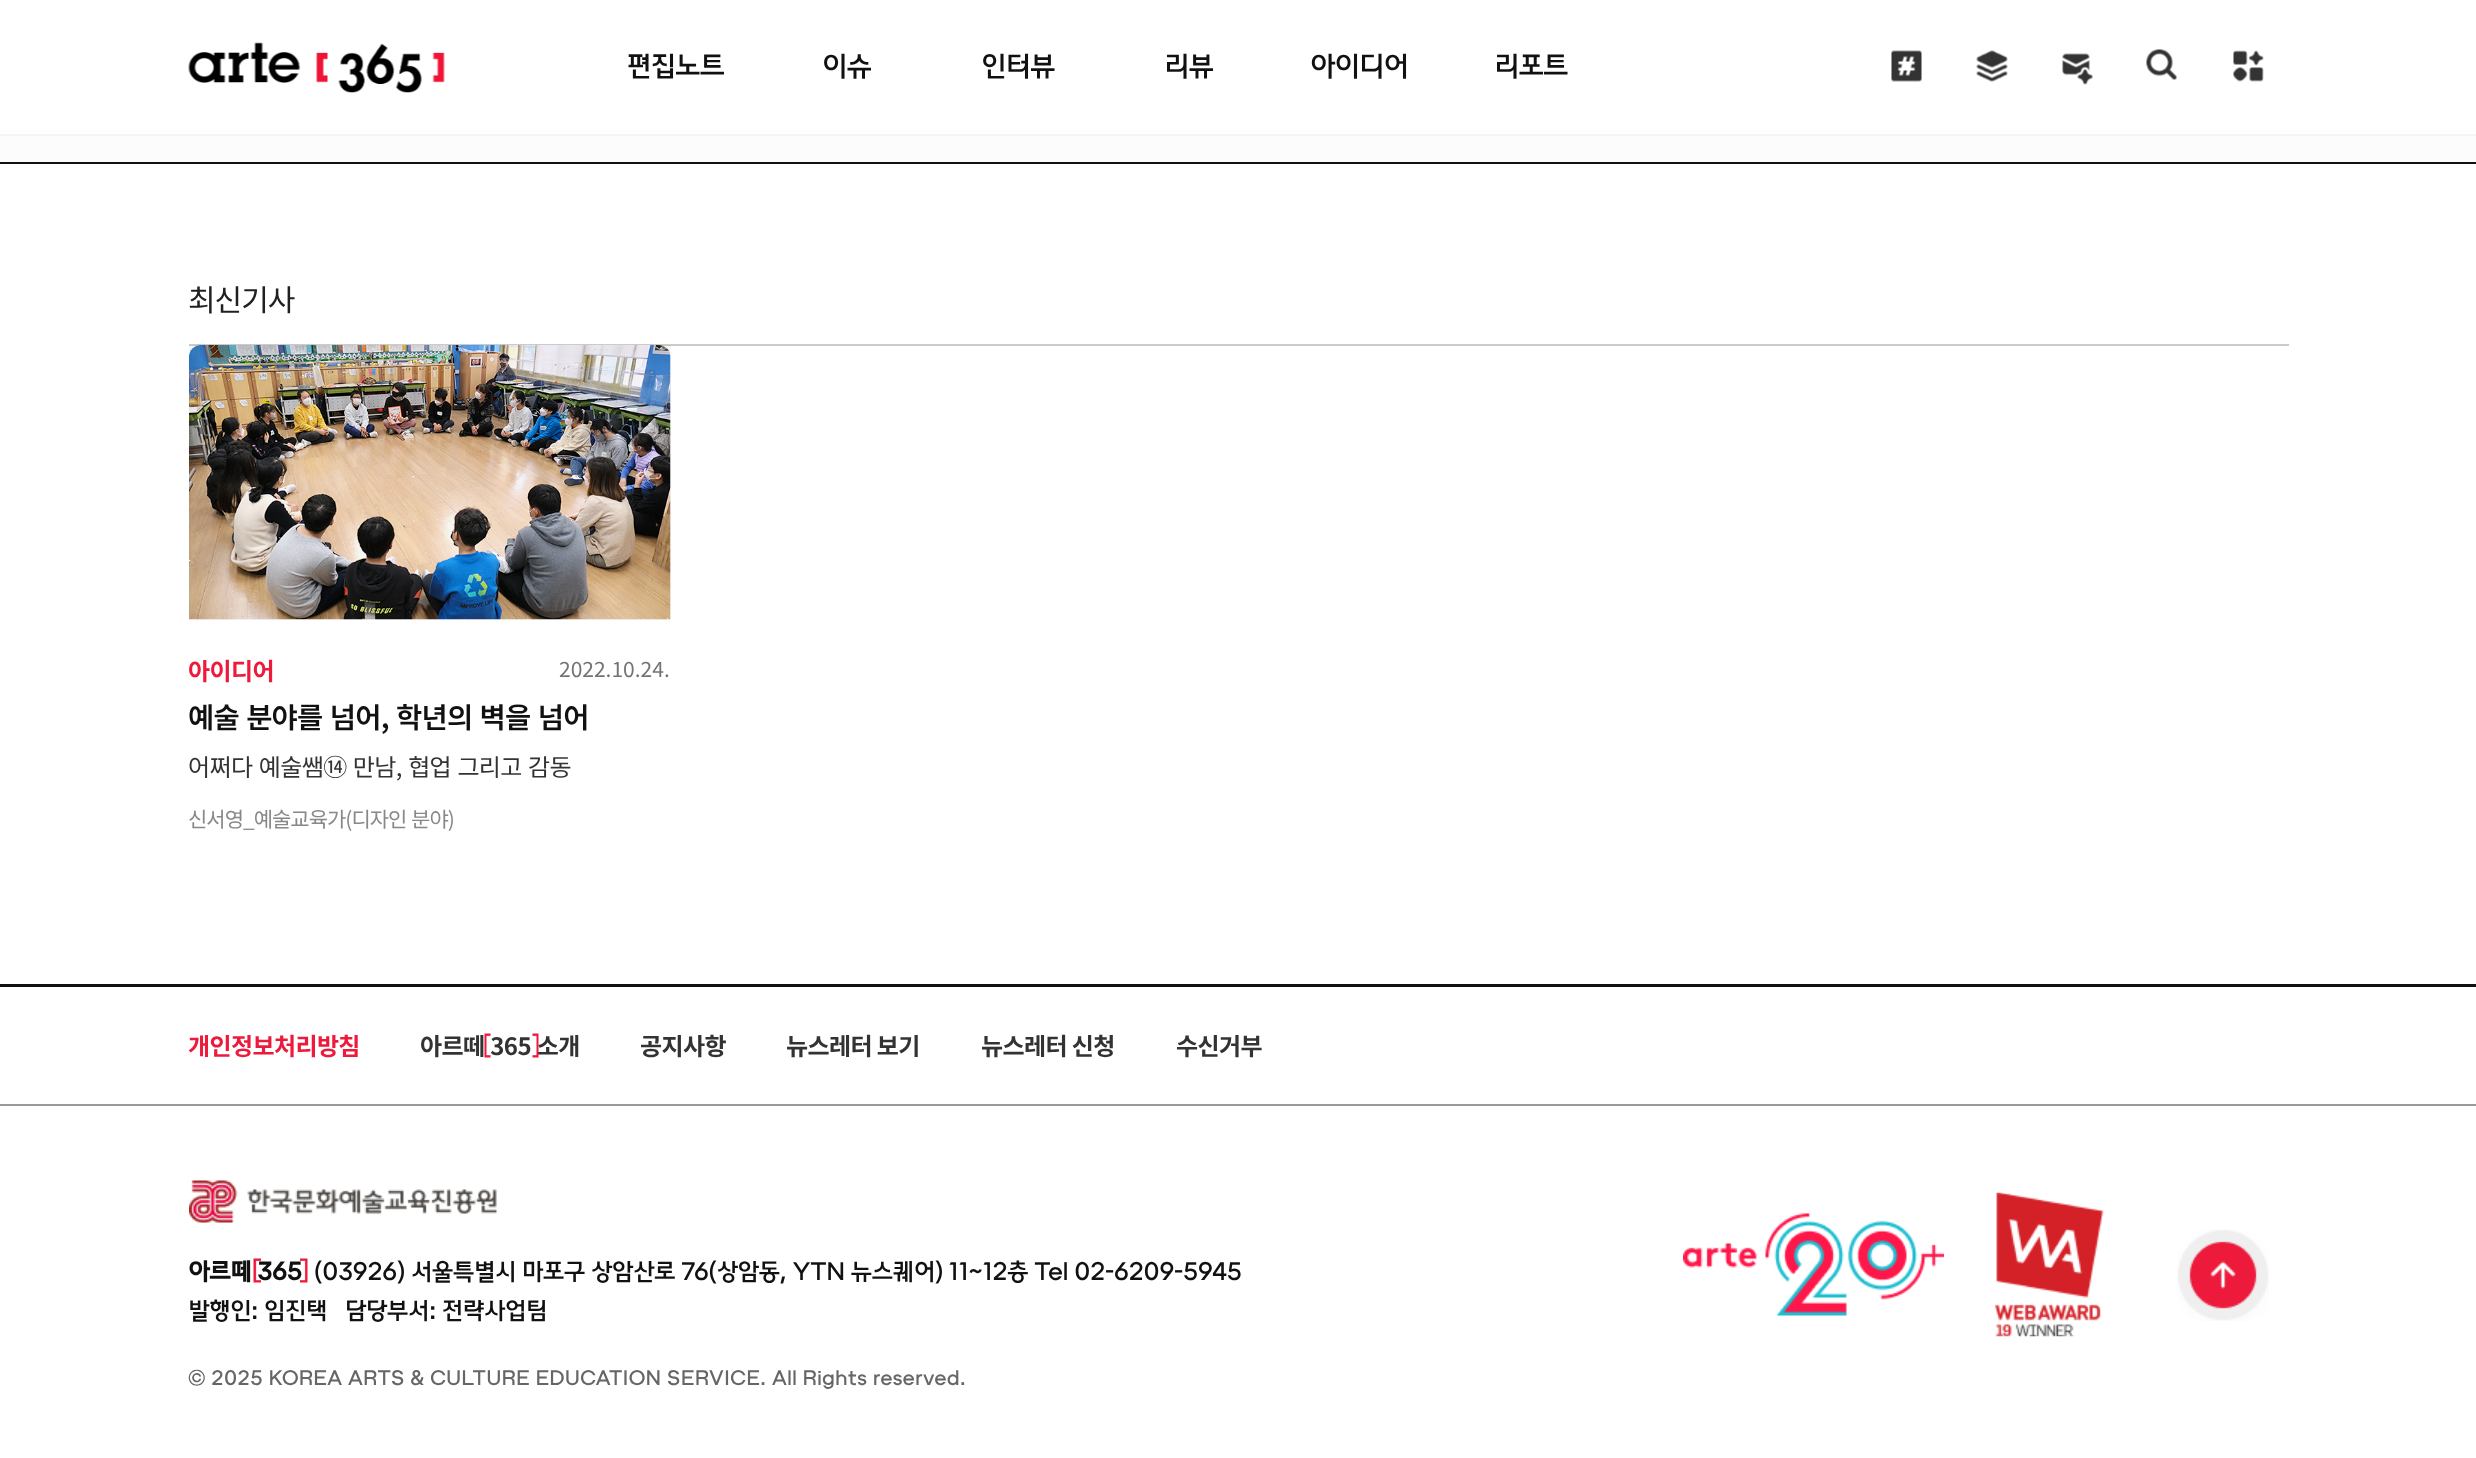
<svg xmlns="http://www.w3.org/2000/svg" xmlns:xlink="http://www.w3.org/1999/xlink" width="2476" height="1458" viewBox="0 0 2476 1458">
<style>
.cls-1{font:30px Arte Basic;letter-spacing:-1px;fill:#111111}
.cls-2{font:30px Noto Sans KR;letter-spacing:-1px;fill:#202020}
.cls-3{font:bold 24px Noto Sans KR;letter-spacing:-0.6px;fill:#ed1a3c}
.cls-4{font:21px Noto Sans KR;fill:#747478}
.cls-5{font:600 28.5px Noto Sans KR;letter-spacing:-0.75px;fill:#111111}
.cls-6{font:24px Noto Sans KR;letter-spacing:-0.6px;fill:#333333}
.cls-7{font:21px Noto Sans KR;letter-spacing:-1px;fill:#888888}
.cls-8{font:bold 24px Noto Sans KR;letter-spacing:-0.6px;fill:#333333}
.cls-9{font:bold 25.5px Arte Basic;letter-spacing:-0.65px;fill:#111111}
.cls-10{font:25.5px Arte Basic;letter-spacing:-0.65px;fill:#111111}
.cls-11{font:21px Arte Basic;fill:#666666}
</style>
<rect width="100%" height="100%" fill="#ffffff"/>
<rect fill="#f2f6fa" x="0" y="134" width="2476" height="2"/>
<image xlink:href="image0.png" x="188" y="42" width="257" height="51"/>
<image xlink:href="image1.png" x="1891" y="50" width="31" height="32"/>
<image xlink:href="image2.png" x="1976" y="50" width="32" height="32"/>
<image xlink:href="image3.png" x="2062" y="53" width="31" height="32"/>
<image xlink:href="image4.png" x="2146" y="49" width="31" height="31"/>
<image xlink:href="image5.png" x="2233" y="50" width="31" height="32"/>
<rect fill="#fcfcfc" x="0" y="136" width="2476" height="26"/>
<rect fill="#111111" x="0" y="162" width="2476" height="2"/>
<rect fill="#cbcbcb" x="189" y="344" width="2100" height="2"/>
<image xlink:href="image6.png" x="189" y="345" width="482" height="275"/>
<rect fill="#000000" fill-opacity="0.03" x="189" y="345" width="482" height="275"/>
<rect fill="#111111" x="0" y="984" width="2476" height="3"/>
<rect fill="#999999" x="0" y="1104" width="2476" height="2"/>
<image xlink:href="image9.png" x="189" y="1180" width="308" height="43"/>
<image xlink:href="image12.png" x="1683" y="1213" width="261" height="103"/>
<image xlink:href="image13.png" x="1994" y="1192" width="110" height="145"/>
<image xlink:href="image14.png" x="2177" y="1229" width="92" height="92"/>
<text class="cls-1" x="626" y="76">편집노트</text>
<text class="cls-1" x="822" y="76">이슈</text>
<text class="cls-1" x="981" y="76">인터뷰</text>
<text class="cls-1" x="1164" y="76">리뷰</text>
<text class="cls-1" x="1310" y="76">아이디어</text>
<text class="cls-1" x="1494" y="76">리포트</text>
<text class="cls-2" x="188" y="311">최신기사</text>
<text class="cls-3" x="188" y="680">아이디어</text>
<text class="cls-4" x="559" y="677">2022.10.24.</text>
<text class="cls-5" x="188" y="728" word-spacing="1.5">예술 분야를 넘어, 학년의 벽을 넘어</text>
<text class="cls-6" x="188" y="776" word-spacing="1.5">어쩌다 예술쌤⑭ 만남, 협업 그리고 감동</text>
<text class="cls-7" x="188" y="827" word-spacing="1">신서영_예술교육가(디자인 분야)</text>
<text class="cls-3" x="188" y="1055">개인정보처리방침</text>
<text class="cls-8" x="420" y="1055" word-spacing="1">아르떼 365 소개</text>
<image xlink:href="image8.png" x="532" y="1033" width="7" height="25"/>
<image xlink:href="image7.png" x="484" y="1033" width="7" height="25"/>
<text class="cls-8" x="640" y="1055">공지사항</text>
<text class="cls-8" x="786" y="1055">뉴스레터 보기</text>
<text class="cls-8" x="981" y="1055">뉴스레터 신청</text>
<text class="cls-8" x="1176" y="1055">수신거부</text>
<text class="cls-9" x="188" y="1280">아르떼 365</text>
<image xlink:href="image11.png" x="300" y="1258" width="8" height="25"/>
<image xlink:href="image10.png" x="253" y="1258" width="8" height="25"/>
<text class="cls-10" x="314" y="1280">(03926) 서울특별시 마포구 상암산로 76(상암동, YTN 뉴스퀘어) 11~12층 Tel 02-6209-5945</text>
<text class="cls-10" xml:space="preserve" x="188" y="1319">발행인: 임진택   담당부서: 전략사업팀</text>
<text class="cls-11" x="188" y="1385">© 2025 KOREA ARTS &amp; CULTURE EDUCATION SERVICE. All Rights reserved.</text>
</svg>
